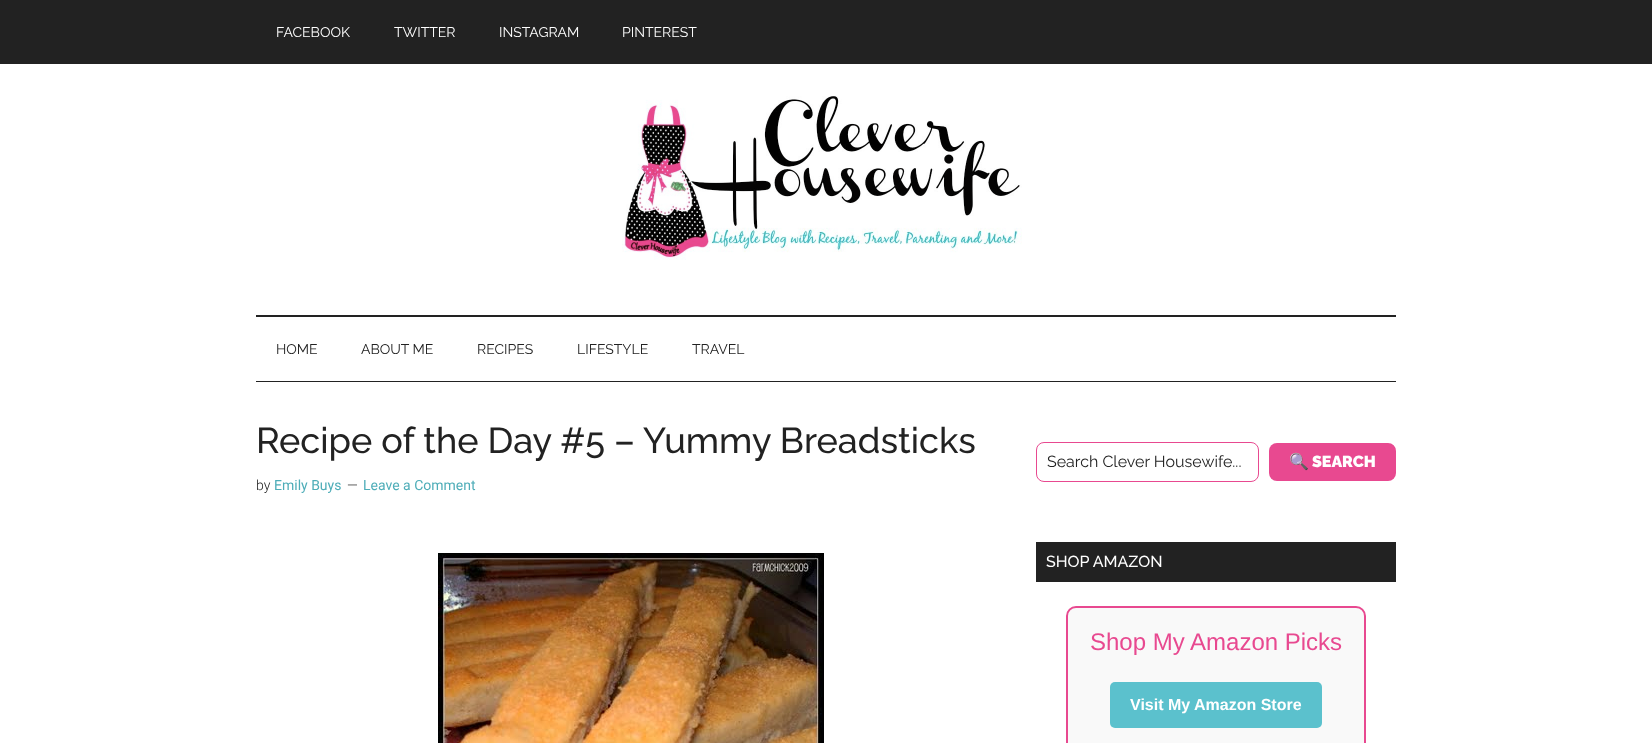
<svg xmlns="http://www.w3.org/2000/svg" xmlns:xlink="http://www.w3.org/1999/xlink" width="1652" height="743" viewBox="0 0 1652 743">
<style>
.cls-1{font:14px Raleway;fill:#ffffff}
.cls-2{font:14px Raleway;fill:#222222}
.cls-3{font:500 36px Raleway;fill:#222222}
.cls-4{font:300 14px Roboto;fill:#222222}
.cls-5{font:14px Roboto;fill:#4eadb8}
.cls-6{font:16px Raleway;fill:#222222}
.cls-7{font:bold 16px Noto Color Emoji;fill:#ffffff}
.cls-8{font:900 16px Raleway;fill:#ffffff}
.cls-9{font:500 16px Raleway;fill:#ffffff}
.cls-10{font:24px Liberation Sans;fill:#e84990}
.cls-11{font:bold 16px Liberation Sans;fill:#ffffff}
</style>
<rect width="100%" height="100%" fill="#ffffff"/>
<rect fill="#222222" x="0" y="0" width="1652" height="64"/>
<rect fill="#222222" x="256" y="315" width="1140" height="2"/>
<image xlink:href="image0.png" x="622" y="96" width="400" height="164"/>
<rect fill="#222222" x="256" y="381" width="1140" height="1"/>
<image xlink:href="image1.png" x="438" y="553" width="386" height="190"/>
<rect fill="none" stroke="#e84990" x="1036.5" y="442.5" width="222" height="39" rx="7.5"/>
<rect fill="#e84990" x="1269" y="443" width="127" height="38" rx="8"/>
<rect fill="#222222" x="1036" y="542" width="360" height="40"/>
<rect fill="#f9f9f9" stroke="#e84990" stroke-width="2" x="1067" y="607" width="298" height="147" rx="9"/>
<rect fill="#5bc1cd" x="1110" y="682" width="212" height="46" rx="5"/>
<text class="cls-1" x="276" y="37">FACEBOOK</text>
<text class="cls-1" x="394" y="37">TWITTER</text>
<text class="cls-1" x="499" y="37">INSTAGRAM</text>
<text class="cls-1" x="622" y="37">PINTEREST</text>
<text class="cls-2" x="276" y="354">HOME</text>
<text class="cls-2" x="361" y="354">ABOUT ME</text>
<text class="cls-2" x="477" y="354">RECIPES</text>
<text class="cls-2" x="577" y="354">LIFESTYLE</text>
<text class="cls-2" x="692" y="354">TRAVEL</text>
<text class="cls-3" x="256" y="453">Recipe of the Day #5 – Yummy Breadsticks</text>
<text class="cls-4" x="256" y="490">by</text>
<text class="cls-5" x="274" y="490">Emily Buys</text>
<text class="cls-4" x="347" y="490">—</text>
<text class="cls-5" x="363" y="490">Leave a Comment</text>
<text class="cls-6" x="1047" y="467">Search Clever Housewife...</text>
<text class="cls-7" x="1289" y="467">🔍</text>
<text class="cls-8" x="1312" y="467">SEARCH</text>
<text class="cls-9" x="1046" y="567">SHOP AMAZON</text>
<text class="cls-10" x="1090" y="650">Shop My Amazon Picks</text>
<text class="cls-11" x="1130" y="710">Visit My Amazon Store</text>
</svg>
